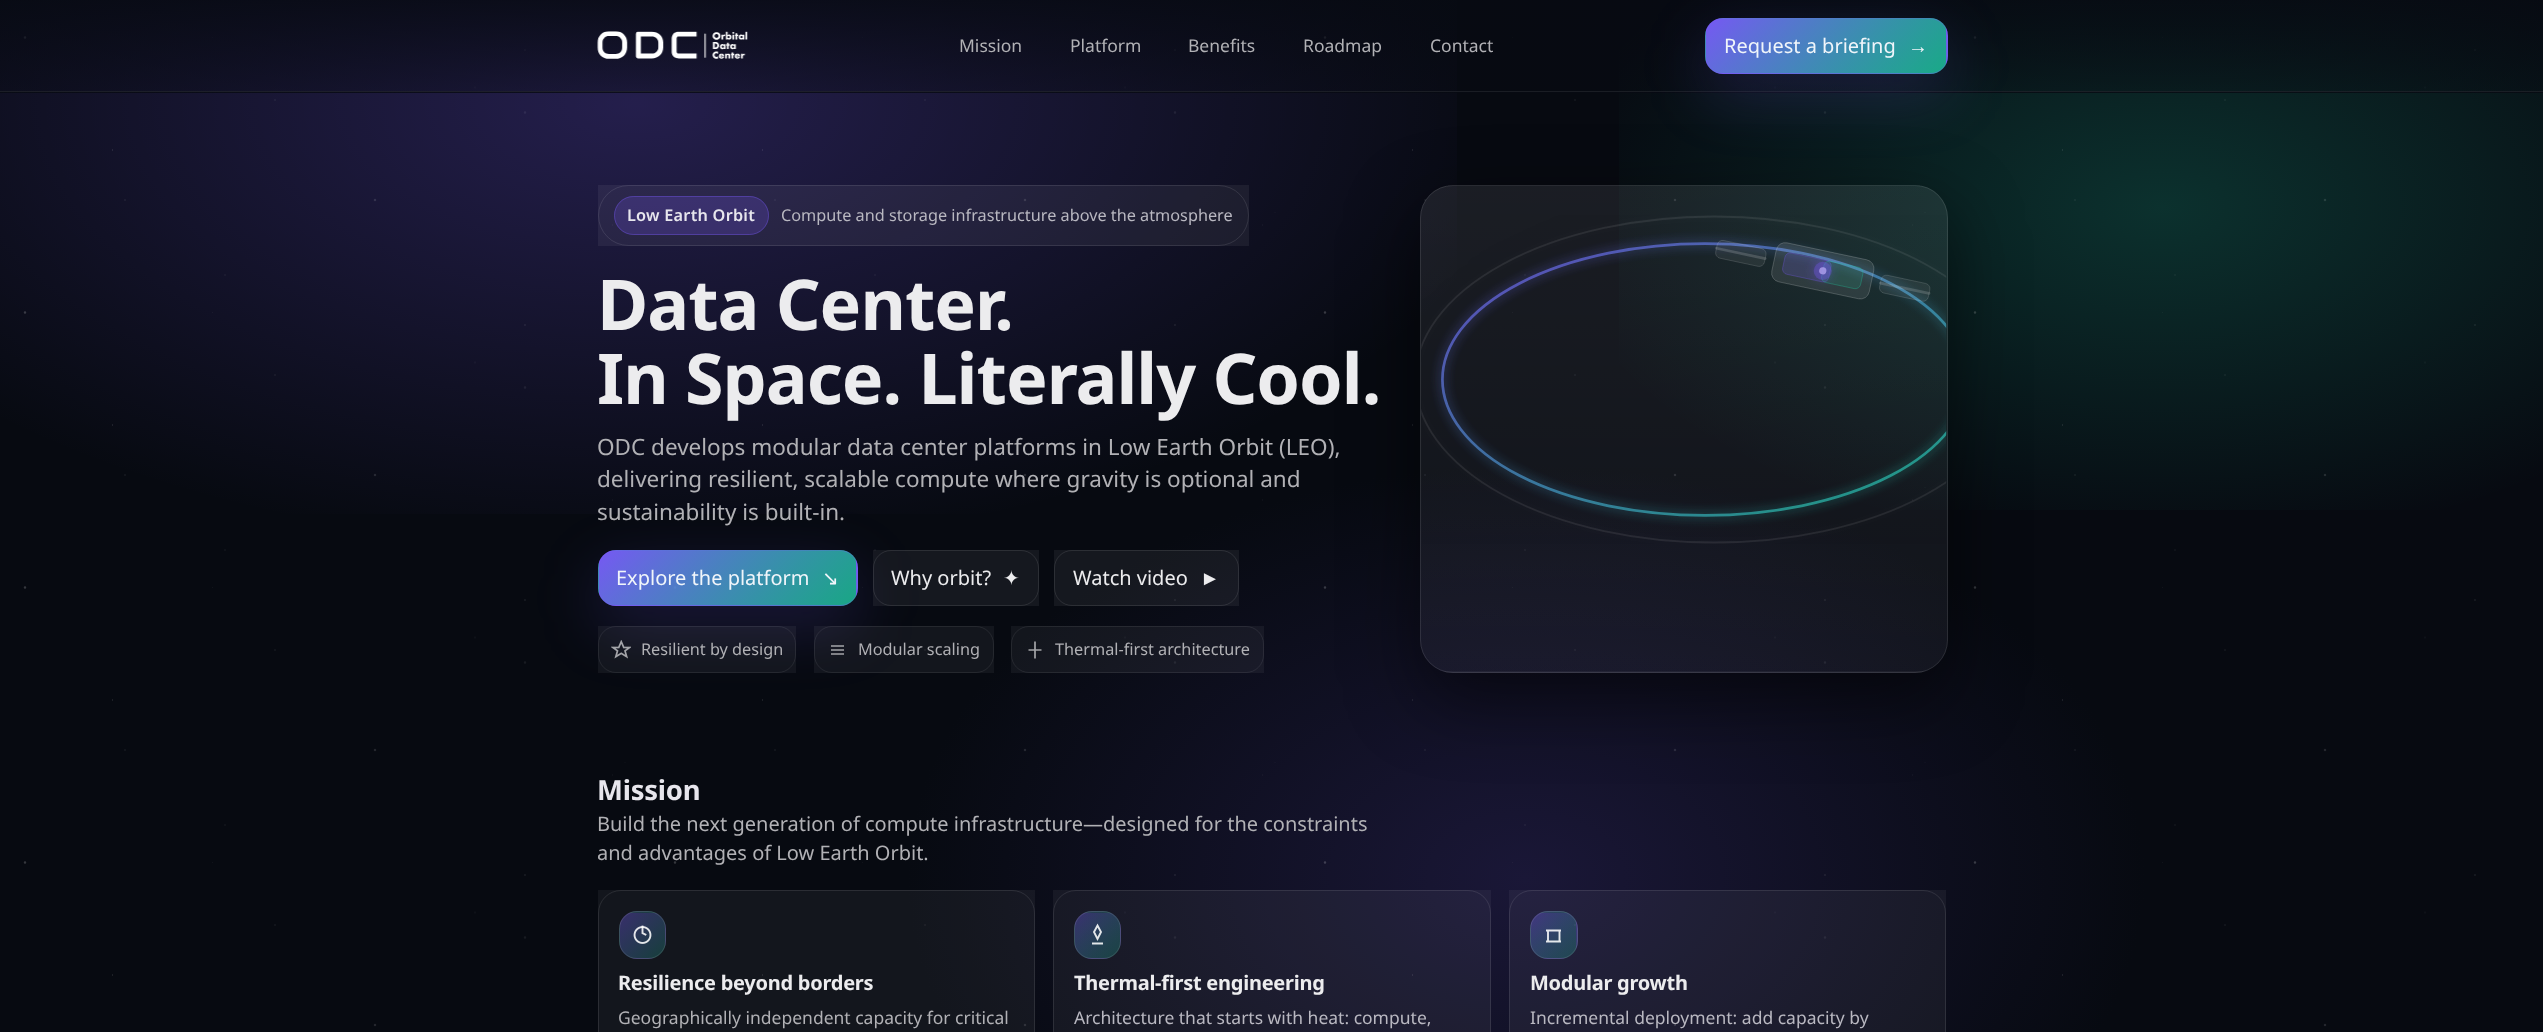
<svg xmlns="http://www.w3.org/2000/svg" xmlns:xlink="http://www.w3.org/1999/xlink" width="2543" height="1032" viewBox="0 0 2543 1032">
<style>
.cls-1{font:17.5px Noto Sans;fill:#b1b1b5}
.cls-2{font:20px Noto Sans;fill:#f0f5fa}
.cls-3{font:20px Liberation Sans;fill:#f0f5fa}
.cls-4{font:600 16.25px Noto Sans;letter-spacing:0.25px;fill:#e7e6ed}
.cls-5{font:16.25px Noto Sans;fill:#b9b8c1}
.cls-6{font:bold 70px Noto Sans;letter-spacing:-1px;fill:#ececee}
.cls-7{font:22.5px Noto Sans;fill:#b1b1b5}
.cls-8{font:20px DejaVu Sans;fill:#f0f5fa}
.cls-9{font:20px Noto Sans;fill:#ececee}
.cls-10{font:20px DejaVu Sans;fill:#ececee}
.cls-11{font:20px Liberation Sans;fill:#ececee}
.cls-12{font:16.25px Noto Sans;fill:#b1b1b5}
.cls-13{font:bold 27.5px Noto Sans;letter-spacing:-0.25px;fill:#e7e6ed}
.cls-14{font:20px Noto Sans;fill:#b1b1b5}
.cls-15{font:bold 20px Noto Sans;letter-spacing:-0.25px;fill:#ececee}
.cls-16{font:17.5px Noto Sans;fill:#b9b8c1}
</style>
<defs>
<radialGradient id="g1" gradientUnits="userSpaceOnUse" cx="0" cy="0" r="1" gradientTransform="matrix(1125 0 0 750 1526 878)"><stop offset="0" stop-color="#1a1737"/><stop offset="0.55" stop-color="#070a11"/></radialGradient>
<radialGradient id="g2" gradientUnits="userSpaceOnUse" cx="0" cy="0" r="1" gradientTransform="matrix(1125 0 0 625 2162 207)"><stop offset="0" stop-color="#20e3b2" stop-opacity="0.18"/><stop offset="0.55" stop-color="#20e3b2" stop-opacity="0"/></radialGradient>
<radialGradient id="g3" gradientUnits="userSpaceOnUse" cx="0" cy="0" r="1" gradientTransform="matrix(1500 0 0 750 636 103)"><stop offset="0" stop-color="#7c5cff" stop-opacity="0.25"/><stop offset="0.6" stop-color="#7c5cff" stop-opacity="0"/></radialGradient>
<linearGradient id="g4" gradientUnits="userSpaceOnUse" x1="1272" y1="0" x2="1272" y2="91"><stop offset="0" stop-color="#070a12" stop-opacity="0.82"/><stop offset="1" stop-color="#070a12" stop-opacity="0.35"/></linearGradient>
<linearGradient id="g5" gradientUnits="userSpaceOnUse" x1="1272" y1="91" x2="1272" y2="183"><stop offset="0" stop-color="#070a12" stop-opacity="0.82"/><stop offset="1" stop-color="#070a12" stop-opacity="0.35"/></linearGradient>
<clipPath id="clip1"><path d="M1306 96H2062V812H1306ZM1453 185H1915C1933 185 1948 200 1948 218V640C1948 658 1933 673 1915 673H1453C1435 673 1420 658 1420 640V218C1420 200 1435 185 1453 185Z" clip-rule="evenodd"/></clipPath>
<linearGradient id="g6" gradientUnits="userSpaceOnUse" x1="1684" y1="-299" x2="1684" y2="186"><stop offset="0" stop-color="#ffffff" stop-opacity="0.08"/><stop offset="1" stop-color="#ffffff" stop-opacity="0.04"/></linearGradient>
<clipPath id="clip2"><rect x="1420" y="185" width="528" height="488" rx="33"/></clipPath>
<linearGradient id="g7" gradientUnits="userSpaceOnUse" x1="1684" y1="186" x2="1684" y2="671"><stop offset="0" stop-color="#ffffff" stop-opacity="0.08"/><stop offset="1" stop-color="#ffffff" stop-opacity="0.04"/></linearGradient>
<linearGradient id="g8" gradientUnits="userSpaceOnUse" x1="1684" y1="671" x2="1684" y2="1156"><stop offset="0" stop-color="#ffffff" stop-opacity="0.08"/><stop offset="1" stop-color="#ffffff" stop-opacity="0.04"/></linearGradient>
<clipPath id="clip3"><path d="M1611 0H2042V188H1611ZM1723 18H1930C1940 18 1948 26 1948 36V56C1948 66 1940 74 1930 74H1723C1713 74 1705 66 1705 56V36C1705 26 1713 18 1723 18Z" clip-rule="evenodd"/></clipPath>
<clipPath id="clip4"><rect x="1705" y="18" width="243" height="56" rx="18"/></clipPath>
<linearGradient id="g9" gradientUnits="userSpaceOnUse" x1="1753" y1="-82" x2="1900" y2="65"><stop offset="0" stop-color="#7c5cff" stop-opacity="0.95"/><stop offset="1" stop-color="#20e3b2" stop-opacity="0.72"/></linearGradient>
<linearGradient id="g10" gradientUnits="userSpaceOnUse" x1="1513" y1="-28" x2="1660" y2="119"><stop offset="0" stop-color="#7c5cff" stop-opacity="0.95"/><stop offset="1" stop-color="#20e3b2" stop-opacity="0.72"/></linearGradient>
<linearGradient id="g11" gradientUnits="userSpaceOnUse" x1="1753" y1="-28" x2="1900" y2="119"><stop offset="0" stop-color="#7c5cff" stop-opacity="0.95"/><stop offset="1" stop-color="#20e3b2" stop-opacity="0.72"/></linearGradient>
<linearGradient id="g12" gradientUnits="userSpaceOnUse" x1="1993" y1="-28" x2="2140" y2="119"><stop offset="0" stop-color="#7c5cff" stop-opacity="0.95"/><stop offset="1" stop-color="#20e3b2" stop-opacity="0.72"/></linearGradient>
<linearGradient id="g13" gradientUnits="userSpaceOnUse" x1="1753" y1="26" x2="1900" y2="173"><stop offset="0" stop-color="#7c5cff" stop-opacity="0.95"/><stop offset="1" stop-color="#20e3b2" stop-opacity="0.72"/></linearGradient>
<clipPath id="clip5"><path d="M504 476H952V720H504ZM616 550H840C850 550 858 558 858 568V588C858 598 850 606 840 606H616C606 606 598 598 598 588V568C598 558 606 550 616 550Z" clip-rule="evenodd"/></clipPath>
<clipPath id="clip6"><rect x="598" y="550" width="260" height="56" rx="18"/></clipPath>
<linearGradient id="g14" gradientUnits="userSpaceOnUse" x1="650" y1="447" x2="805" y2="602"><stop offset="0" stop-color="#7c5cff" stop-opacity="0.95"/><stop offset="1" stop-color="#20e3b2" stop-opacity="0.72"/></linearGradient>
<linearGradient id="g15" gradientUnits="userSpaceOnUse" x1="392" y1="500" x2="548" y2="656"><stop offset="0" stop-color="#7658f3"/><stop offset="1" stop-color="#19a685"/></linearGradient>
<linearGradient id="g16" gradientUnits="userSpaceOnUse" x1="650" y1="500" x2="805" y2="656"><stop offset="0" stop-color="#7c5cff" stop-opacity="0.95"/><stop offset="1" stop-color="#20e3b2" stop-opacity="0.72"/></linearGradient>
<linearGradient id="g17" gradientUnits="userSpaceOnUse" x1="907" y1="500" x2="1063" y2="656"><stop offset="0" stop-color="#7c5cff" stop-opacity="0.95"/><stop offset="1" stop-color="#20e3b2" stop-opacity="0.72"/></linearGradient>
<linearGradient id="g18" gradientUnits="userSpaceOnUse" x1="650" y1="554" x2="805" y2="710"><stop offset="0" stop-color="#7658f3"/><stop offset="1" stop-color="#19a685"/></linearGradient>
<clipPath id="clip7"><rect x="619" y="911" width="47" height="48" rx="18"/></clipPath>
<linearGradient id="g19" gradientUnits="userSpaceOnUse" x1="620" y1="868" x2="665" y2="913"><stop offset="0" stop-color="#382f6c"/><stop offset="1" stop-color="#163f3b"/></linearGradient>
<linearGradient id="g20" gradientUnits="userSpaceOnUse" x1="575" y1="913" x2="620" y2="958"><stop offset="0" stop-color="#382f6c"/><stop offset="1" stop-color="#163f3b"/></linearGradient>
<linearGradient id="g21" gradientUnits="userSpaceOnUse" x1="620" y1="913" x2="665" y2="958"><stop offset="0" stop-color="#382f6c"/><stop offset="1" stop-color="#163f3b"/></linearGradient>
<linearGradient id="g22" gradientUnits="userSpaceOnUse" x1="665" y1="913" x2="710" y2="958"><stop offset="0" stop-color="#382f6c"/><stop offset="1" stop-color="#163f3b"/></linearGradient>
<linearGradient id="g23" gradientUnits="userSpaceOnUse" x1="620" y1="958" x2="665" y2="1003"><stop offset="0" stop-color="#382f6c"/><stop offset="1" stop-color="#163f3b"/></linearGradient>
<clipPath id="clip8"><rect x="1074" y="911" width="47" height="48" rx="18"/></clipPath>
<linearGradient id="g24" gradientUnits="userSpaceOnUse" x1="1075" y1="868" x2="1120" y2="913"><stop offset="0" stop-color="#3c3173"/><stop offset="1" stop-color="#1a4243"/></linearGradient>
<linearGradient id="g25" gradientUnits="userSpaceOnUse" x1="1030" y1="913" x2="1075" y2="958"><stop offset="0" stop-color="#3b3172"/><stop offset="1" stop-color="#1a4142"/></linearGradient>
<linearGradient id="g26" gradientUnits="userSpaceOnUse" x1="1075" y1="913" x2="1120" y2="958"><stop offset="0" stop-color="#7c5cff" stop-opacity="0.35"/><stop offset="1" stop-color="#20e3b2" stop-opacity="0.2"/></linearGradient>
<linearGradient id="g27" gradientUnits="userSpaceOnUse" x1="1120" y1="913" x2="1165" y2="958"><stop offset="0" stop-color="#3c3174"/><stop offset="1" stop-color="#1a4244"/></linearGradient>
<linearGradient id="g28" gradientUnits="userSpaceOnUse" x1="1075" y1="958" x2="1120" y2="1003"><stop offset="0" stop-color="#3b3173"/><stop offset="1" stop-color="#1a4243"/></linearGradient>
<clipPath id="clip9"><rect x="1530" y="911" width="48" height="48" rx="18"/></clipPath>
<linearGradient id="g29" gradientUnits="userSpaceOnUse" x1="1531" y1="868" x2="1576" y2="913"><stop offset="0" stop-color="#433681"/><stop offset="1" stop-color="#234855"/></linearGradient>
<linearGradient id="g30" gradientUnits="userSpaceOnUse" x1="1486" y1="913" x2="1531" y2="958"><stop offset="0" stop-color="#423680"/><stop offset="1" stop-color="#224854"/></linearGradient>
<linearGradient id="g31" gradientUnits="userSpaceOnUse" x1="1531" y1="913" x2="1576" y2="958"><stop offset="0" stop-color="#7c5cff" stop-opacity="0.35"/><stop offset="1" stop-color="#20e3b2" stop-opacity="0.2"/></linearGradient>
<linearGradient id="g32" gradientUnits="userSpaceOnUse" x1="1576" y1="913" x2="1621" y2="958"><stop offset="0" stop-color="#423580"/><stop offset="1" stop-color="#224853"/></linearGradient>
<linearGradient id="g33" gradientUnits="userSpaceOnUse" x1="1531" y1="958" x2="1576" y2="1003"><stop offset="0" stop-color="#41357f"/><stop offset="1" stop-color="#214752"/></linearGradient>
</defs>
<rect width="100%" height="100%" fill="#ffffff"/>
<rect fill="url(#g1)" x="0" y="0" width="2543" height="1032"/>
<rect fill="url(#g2)" x="1619" y="0" width="924" height="510"/>
<rect fill="url(#g3)" x="0" y="0" width="1457" height="514"/>
<path fill="none" stroke="#ffffff" stroke-opacity="0.17" stroke-width="1.3" stroke-linecap="round" stroke-dasharray="0 650" d="M525 50H2475.2"/>
<path fill="none" stroke="#ffffff" stroke-opacity="0.17" stroke-width="1.3" stroke-linecap="round" stroke-dasharray="0 650" d="M525 325H2475.2"/>
<path fill="none" stroke="#ffffff" stroke-opacity="0.17" stroke-width="1.3" stroke-linecap="round" stroke-dasharray="0 650" d="M525 600H2475.2"/>
<path fill="none" stroke="#ffffff" stroke-opacity="0.17" stroke-width="1.3" stroke-linecap="round" stroke-dasharray="0 650" d="M525 875H2475.2"/>
<path fill="none" stroke="#ffffff" stroke-opacity="0.12" stroke-width="2.5" stroke-linecap="round" stroke-dasharray="0 650" d="M375 200H2325.2"/>
<path fill="none" stroke="#ffffff" stroke-opacity="0.12" stroke-width="2.5" stroke-linecap="round" stroke-dasharray="0 650" d="M375 475H2325.2"/>
<path fill="none" stroke="#ffffff" stroke-opacity="0.12" stroke-width="2.5" stroke-linecap="round" stroke-dasharray="0 650" d="M375 750H2325.2"/>
<path fill="none" stroke="#ffffff" stroke-opacity="0.12" stroke-width="2.5" stroke-linecap="round" stroke-dasharray="0 650" d="M375 1025H2325.2"/>
<path fill="none" stroke="#ffffff" stroke-opacity="0.13" stroke-width="1.3" stroke-linecap="round" stroke-dasharray="0 650" d="M275 100H2225.2"/>
<path fill="none" stroke="#ffffff" stroke-opacity="0.13" stroke-width="1.3" stroke-linecap="round" stroke-dasharray="0 650" d="M275 375H2225.2"/>
<path fill="none" stroke="#ffffff" stroke-opacity="0.13" stroke-width="1.3" stroke-linecap="round" stroke-dasharray="0 650" d="M275 650H2225.2"/>
<path fill="none" stroke="#ffffff" stroke-opacity="0.13" stroke-width="1.3" stroke-linecap="round" stroke-dasharray="0 650" d="M275 925H2225.2"/>
<path fill="none" stroke="#ffffff" stroke-opacity="0.15" stroke-width="1.3" stroke-linecap="round" stroke-dasharray="0 650" d="M112.5 150H2062.8"/>
<path fill="none" stroke="#ffffff" stroke-opacity="0.15" stroke-width="1.3" stroke-linecap="round" stroke-dasharray="0 650" d="M112.5 425H2062.8"/>
<path fill="none" stroke="#ffffff" stroke-opacity="0.15" stroke-width="1.3" stroke-linecap="round" stroke-dasharray="0 650" d="M112.5 700H2062.8"/>
<path fill="none" stroke="#ffffff" stroke-opacity="0.15" stroke-width="1.3" stroke-linecap="round" stroke-dasharray="0 650" d="M112.5 975H2062.8"/>
<path fill="none" stroke="#ffffff" stroke-opacity="0.19" stroke-width="2.5" stroke-linecap="round" stroke-dasharray="0 650" d="M25 37.5H1975.2"/>
<path fill="none" stroke="#ffffff" stroke-opacity="0.19" stroke-width="2.5" stroke-linecap="round" stroke-dasharray="0 650" d="M25 312.5H1975.2"/>
<path fill="none" stroke="#ffffff" stroke-opacity="0.19" stroke-width="2.5" stroke-linecap="round" stroke-dasharray="0 650" d="M25 587.5H1975.2"/>
<path fill="none" stroke="#ffffff" stroke-opacity="0.19" stroke-width="2.5" stroke-linecap="round" stroke-dasharray="0 650" d="M25 862.5H1975.2"/>
<path fill="none" stroke="#ffffff" stroke-opacity="0.04" stroke-width="1.3" stroke-linecap="round" stroke-dasharray="0 650" d="M625 212.5H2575.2"/>
<path fill="none" stroke="#ffffff" stroke-opacity="0.04" stroke-width="1.3" stroke-linecap="round" stroke-dasharray="0 650" d="M625 487.5H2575.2"/>
<path fill="none" stroke="#ffffff" stroke-opacity="0.04" stroke-width="1.3" stroke-linecap="round" stroke-dasharray="0 650" d="M625 762.5H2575.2"/>
<path fill="none" stroke="#ffffff" stroke-opacity="0.03" stroke-width="2.5" stroke-linecap="round" stroke-dasharray="0 650" d="M475 87.5H2425.2"/>
<path fill="none" stroke="#ffffff" stroke-opacity="0.03" stroke-width="2.5" stroke-linecap="round" stroke-dasharray="0 650" d="M475 362.5H2425.2"/>
<path fill="none" stroke="#ffffff" stroke-opacity="0.03" stroke-width="2.5" stroke-linecap="round" stroke-dasharray="0 650" d="M475 637.5H2425.2"/>
<path fill="none" stroke="#ffffff" stroke-opacity="0.03" stroke-width="2.5" stroke-linecap="round" stroke-dasharray="0 650" d="M475 912.5H2425.2"/>
<path fill="none" stroke="#ffffff" stroke-opacity="0.04" stroke-width="1.3" stroke-linecap="round" stroke-dasharray="0 650" d="M212.5 37.5H2162.8"/>
<path fill="none" stroke="#ffffff" stroke-opacity="0.04" stroke-width="1.3" stroke-linecap="round" stroke-dasharray="0 650" d="M212.5 312.5H2162.8"/>
<path fill="none" stroke="#ffffff" stroke-opacity="0.04" stroke-width="1.3" stroke-linecap="round" stroke-dasharray="0 650" d="M212.5 587.5H2162.8"/>
<path fill="none" stroke="#ffffff" stroke-opacity="0.04" stroke-width="1.3" stroke-linecap="round" stroke-dasharray="0 650" d="M212.5 862.5H2162.8"/>
<path fill="none" stroke="#ffffff" stroke-opacity="0.05" stroke-width="2.5" stroke-linecap="round" stroke-dasharray="0 650" d="M125 200H2075.2"/>
<path fill="none" stroke="#ffffff" stroke-opacity="0.05" stroke-width="2.5" stroke-linecap="round" stroke-dasharray="0 650" d="M125 475H2075.2"/>
<path fill="none" stroke="#ffffff" stroke-opacity="0.05" stroke-width="2.5" stroke-linecap="round" stroke-dasharray="0 650" d="M125 750H2075.2"/>
<path fill="none" stroke="#ffffff" stroke-opacity="0.04" stroke-width="2.5" stroke-linecap="round" stroke-dasharray="0 650" d="M225 275H2175.2"/>
<path fill="none" stroke="#ffffff" stroke-opacity="0.04" stroke-width="2.5" stroke-linecap="round" stroke-dasharray="0 650" d="M225 550H2175.2"/>
<path fill="none" stroke="#ffffff" stroke-opacity="0.04" stroke-width="2.5" stroke-linecap="round" stroke-dasharray="0 650" d="M225 825H2175.2"/>
<path fill="none" stroke="#ffffff" stroke-opacity="0.05" stroke-width="1.3" stroke-linecap="round" stroke-dasharray="0 650" d="M-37.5 225H1912.8"/>
<path fill="none" stroke="#ffffff" stroke-opacity="0.05" stroke-width="1.3" stroke-linecap="round" stroke-dasharray="0 650" d="M-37.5 500H1912.8"/>
<path fill="none" stroke="#ffffff" stroke-opacity="0.05" stroke-width="1.3" stroke-linecap="round" stroke-dasharray="0 650" d="M-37.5 775H1912.8"/>
<path fill="none" stroke="#ffffff" stroke-opacity="0.07" stroke-width="2.5" stroke-linecap="round" stroke-dasharray="0 650" d="M-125 112.5H1825.2"/>
<path fill="none" stroke="#ffffff" stroke-opacity="0.07" stroke-width="2.5" stroke-linecap="round" stroke-dasharray="0 650" d="M-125 387.5H1825.2"/>
<path fill="none" stroke="#ffffff" stroke-opacity="0.07" stroke-width="2.5" stroke-linecap="round" stroke-dasharray="0 650" d="M-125 662.5H1825.2"/>
<path fill="none" stroke="#ffffff" stroke-opacity="0.07" stroke-width="2.5" stroke-linecap="round" stroke-dasharray="0 650" d="M-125 937.5H1825.2"/>
<rect fill="url(#g4)" x="0" y="0" width="2543" height="91"/>
<rect fill="url(#g5)" x="0" y="91" width="2543" height="2"/>
<rect fill="#ffffff" fill-opacity="0.08" x="0" y="91" width="2543" height="1"/>
<image xlink:href="image0.png" x="597" y="31" width="151" height="28"/>
<g clip-path="url(#clip1)">
<rect fill="#000000" fill-opacity="0.55" filter="blur(37.5px)" x="1420" y="210" width="528" height="488" rx="33"/>
</g>
<rect fill="url(#g6)" x="1448" y="185" width="472" height="1"/>
<g clip-path="url(#clip2)">
<rect fill="url(#g7)" x="1420" y="186" width="528" height="485"/>
<rect fill="url(#g8)" x="1442" y="671" width="484" height="2"/>
</g>
<rect fill="none" stroke="#ffffff" stroke-opacity="0.1" x="1420.5" y="185.5" width="527" height="487" rx="32.5"/>
<g clip-path="url(#clip3)">
<rect fill="#7c5cff" fill-opacity="0.18" filter="blur(31px)" x="1705" y="38" width="243" height="56" rx="18"/>
</g>
<g clip-path="url(#clip4)">
<rect fill="url(#g9)" x="1717" y="18" width="219" height="1"/>
<rect fill="url(#g10)" x="1705" y="30" width="1" height="32"/>
<rect fill="url(#g11)" x="1706" y="19" width="240" height="54"/>
<rect fill="url(#g12)" x="1946" y="28" width="2" height="36"/>
<rect fill="url(#g13)" x="1717" y="73" width="219" height="1"/>
</g>
<rect fill="none" stroke="#7c5cff" stroke-opacity="0.35" x="1705.5" y="18.5" width="242" height="55" rx="17.5"/>
<rect fill="#ffffff" fill-opacity="0.06" x="598" y="185" width="651" height="61"/>
<rect fill="none" stroke="#ffffff" stroke-opacity="0.1" x="598.5" y="185.5" width="650" height="60" rx="30"/>
<rect fill="#7c5cff" fill-opacity="0.2" x="614" y="196" width="155" height="39" rx="19.5"/>
<rect fill="none" stroke="#7c5cff" stroke-opacity="0.35" x="614.5" y="196.5" width="154" height="38" rx="19"/>
<g clip-path="url(#clip5)">
<rect fill="#7c5cff" fill-opacity="0.18" filter="blur(31px)" x="598" y="570" width="260" height="56" rx="18"/>
</g>
<g clip-path="url(#clip6)">
<rect fill="url(#g14)" x="610" y="550" width="236" height="1"/>
<rect fill="url(#g15)" x="598" y="562" width="1" height="32"/>
<rect fill="url(#g16)" x="599" y="551" width="257" height="54"/>
<rect fill="url(#g17)" x="856" y="560" width="2" height="36"/>
<rect fill="url(#g18)" x="610" y="605" width="236" height="1"/>
</g>
<rect fill="none" stroke="#7c5cff" stroke-opacity="0.35" x="598.5" y="550.5" width="259" height="55" rx="17.5"/>
<rect fill="#ffffff" fill-opacity="0.06" x="873" y="550" width="166" height="56"/>
<rect fill="none" stroke="#ffffff" stroke-opacity="0.1" x="873.5" y="550.5" width="165" height="55" rx="17.5"/>
<rect fill="#ffffff" fill-opacity="0.06" x="1054" y="550" width="185" height="56"/>
<rect fill="none" stroke="#ffffff" stroke-opacity="0.1" x="1054.5" y="550.5" width="184" height="55" rx="17.5"/>
<rect fill="#ffffff" fill-opacity="0.05" x="598" y="626" width="198" height="47"/>
<rect fill="none" stroke="#ffffff" stroke-opacity="0.08" x="598.5" y="626.5" width="197" height="46" rx="17.5"/>
<image xlink:href="image1.png" x="611" y="640" width="20" height="19"/>
<rect fill="#ffffff" fill-opacity="0.05" x="814" y="626" width="180" height="47"/>
<rect fill="none" stroke="#ffffff" stroke-opacity="0.08" x="814.5" y="626.5" width="179" height="46" rx="17.5"/>
<path fill="none" stroke="#ffffff" stroke-opacity="0.61" stroke-width="1.7" d="M831 646H844M831 650H844M831 654H844"/>
<rect fill="#ffffff" fill-opacity="0.05" x="1011" y="626" width="253" height="47"/>
<rect fill="none" stroke="#ffffff" stroke-opacity="0.08" x="1011.5" y="626.5" width="252" height="46" rx="17.5"/>
<path fill="none" stroke="#a4a5a8" stroke-width="1.7" d="M1035 641.5V658.5M1028.5 650H1041.5"/>
<image xlink:href="image2.png" x="1421" y="215" width="526" height="329"/>
<rect fill="#ffffff" fill-opacity="0.05" x="598" y="890" width="437" height="142"/>
<rect fill="none" stroke="#ffffff" stroke-opacity="0.1" x="598.5" y="890.5" width="436" height="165" rx="22.5"/>
<g clip-path="url(#clip7)">
<rect fill="url(#g19)" x="629" y="911" width="27" height="2"/>
<rect fill="url(#g20)" x="619" y="923" width="1" height="24"/>
<rect fill="url(#g21)" x="620" y="913" width="45" height="45"/>
<rect fill="url(#g22)" x="665" y="923" width="1" height="24"/>
<rect fill="url(#g23)" x="631" y="958" width="23" height="1"/>
</g>
<rect fill="none" stroke="#ffffff" stroke-opacity="0.12" x="619.5" y="911.5" width="46" height="47" rx="17.5"/>
<image xlink:href="image3.png" x="633" y="925" width="19" height="19"/>
<rect fill="#ffffff" fill-opacity="0.05" x="1053" y="890" width="438" height="142"/>
<rect fill="none" stroke="#ffffff" stroke-opacity="0.1" x="1053.5" y="890.5" width="437" height="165" rx="22.5"/>
<g clip-path="url(#clip8)">
<rect fill="url(#g24)" x="1084" y="911" width="27" height="2"/>
<rect fill="url(#g25)" x="1074" y="923" width="1" height="24"/>
<rect fill="url(#g26)" x="1075" y="913" width="45" height="45"/>
<rect fill="url(#g27)" x="1120" y="923" width="1" height="24"/>
<rect fill="url(#g28)" x="1086" y="958" width="23" height="1"/>
</g>
<rect fill="none" stroke="#ffffff" stroke-opacity="0.12" x="1074.5" y="911.5" width="46" height="47" rx="17.5"/>
<path fill="none" stroke="#ffffff" stroke-opacity="0.87" stroke-width="1.9" d="M1097.5 925.5L1101 932L1097.5 939L1094 932ZM1092 943.5H1103"/>
<rect fill="#ffffff" fill-opacity="0.05" x="1509" y="890" width="437" height="142"/>
<rect fill="none" stroke="#ffffff" stroke-opacity="0.1" x="1509.5" y="890.5" width="436" height="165" rx="22.5"/>
<g clip-path="url(#clip9)">
<rect fill="url(#g29)" x="1540" y="911" width="36" height="2"/>
<rect fill="url(#g30)" x="1530" y="923" width="1" height="24"/>
<rect fill="url(#g31)" x="1531" y="913" width="45" height="45"/>
<rect fill="url(#g32)" x="1576" y="913" width="2" height="36"/>
<rect fill="url(#g33)" x="1542" y="958" width="24" height="1"/>
</g>
<rect fill="none" stroke="#ffffff" stroke-opacity="0.12" x="1530.5" y="911.5" width="47" height="47" rx="17.5"/>
<path fill="none" stroke="#ffffff" stroke-opacity="0.87" stroke-width="1.9" d="M1546 930.5H1561M1548 930.5V941.5M1559.5 930.5V941.5M1546 941.5H1561"/>
<text class="cls-1" x="959" y="52">Mission</text>
<text class="cls-1" x="1070" y="52">Platform</text>
<text class="cls-1" x="1188" y="52">Benefits</text>
<text class="cls-1" x="1303" y="52">Roadmap</text>
<text class="cls-1" x="1430" y="52">Contact</text>
<text class="cls-2" x="1724" y="53">Request a briefing</text>
<text class="cls-3" x="1908" y="53">→</text>
<text class="cls-4" x="627" y="221">Low Earth Orbit</text>
<text class="cls-5" x="781" y="221">Compute and storage infrastructure above the atmosphere</text>
<text class="cls-6"><tspan x="597" y="330">Data Center.</tspan><tspan x="597" y="404">In Space. Literally Cool.</tspan></text>
<text class="cls-7"><tspan x="597" y="455">ODC develops modular data center platforms in Low Earth Orbit (LEO),</tspan><tspan x="597" y="487">delivering resilient, scalable compute where gravity is optional and</tspan><tspan x="597" y="520">sustainability is built-in.</tspan></text>
<text class="cls-2" x="616" y="585">Explore the platform</text>
<text class="cls-8" x="822" y="585">↘</text>
<text class="cls-9" x="891" y="585">Why orbit?</text>
<text class="cls-10" x="1003" y="585">✦</text>
<text class="cls-9" x="1073" y="585">Watch video</text>
<text class="cls-11" x="1200" y="585">►</text>
<text class="cls-12" x="641" y="655">Resilient by design</text>
<text class="cls-12" x="858" y="655">Modular scaling</text>
<text class="cls-12" x="1055" y="655">Thermal-first architecture</text>
<text class="cls-13" x="597" y="800">Mission</text>
<text class="cls-14"><tspan x="597" y="831">Build the next generation of compute infrastructure—designed for the constraints</tspan><tspan x="597" y="860">and advantages of Low Earth Orbit.</tspan></text>
<text class="cls-15" x="618" y="990">Resilience beyond borders</text>
<text class="cls-1" x="618" y="1024">Geographically independent capacity for critical</text>
<text class="cls-15" x="1074" y="990">Thermal-first engineering</text>
<text class="cls-16" x="1074" y="1024">Architecture that starts with heat: compute,</text>
<text class="cls-15" x="1530" y="990">Modular growth</text>
<text class="cls-16" x="1530" y="1024">Incremental deployment: add capacity by</text>
</svg>
